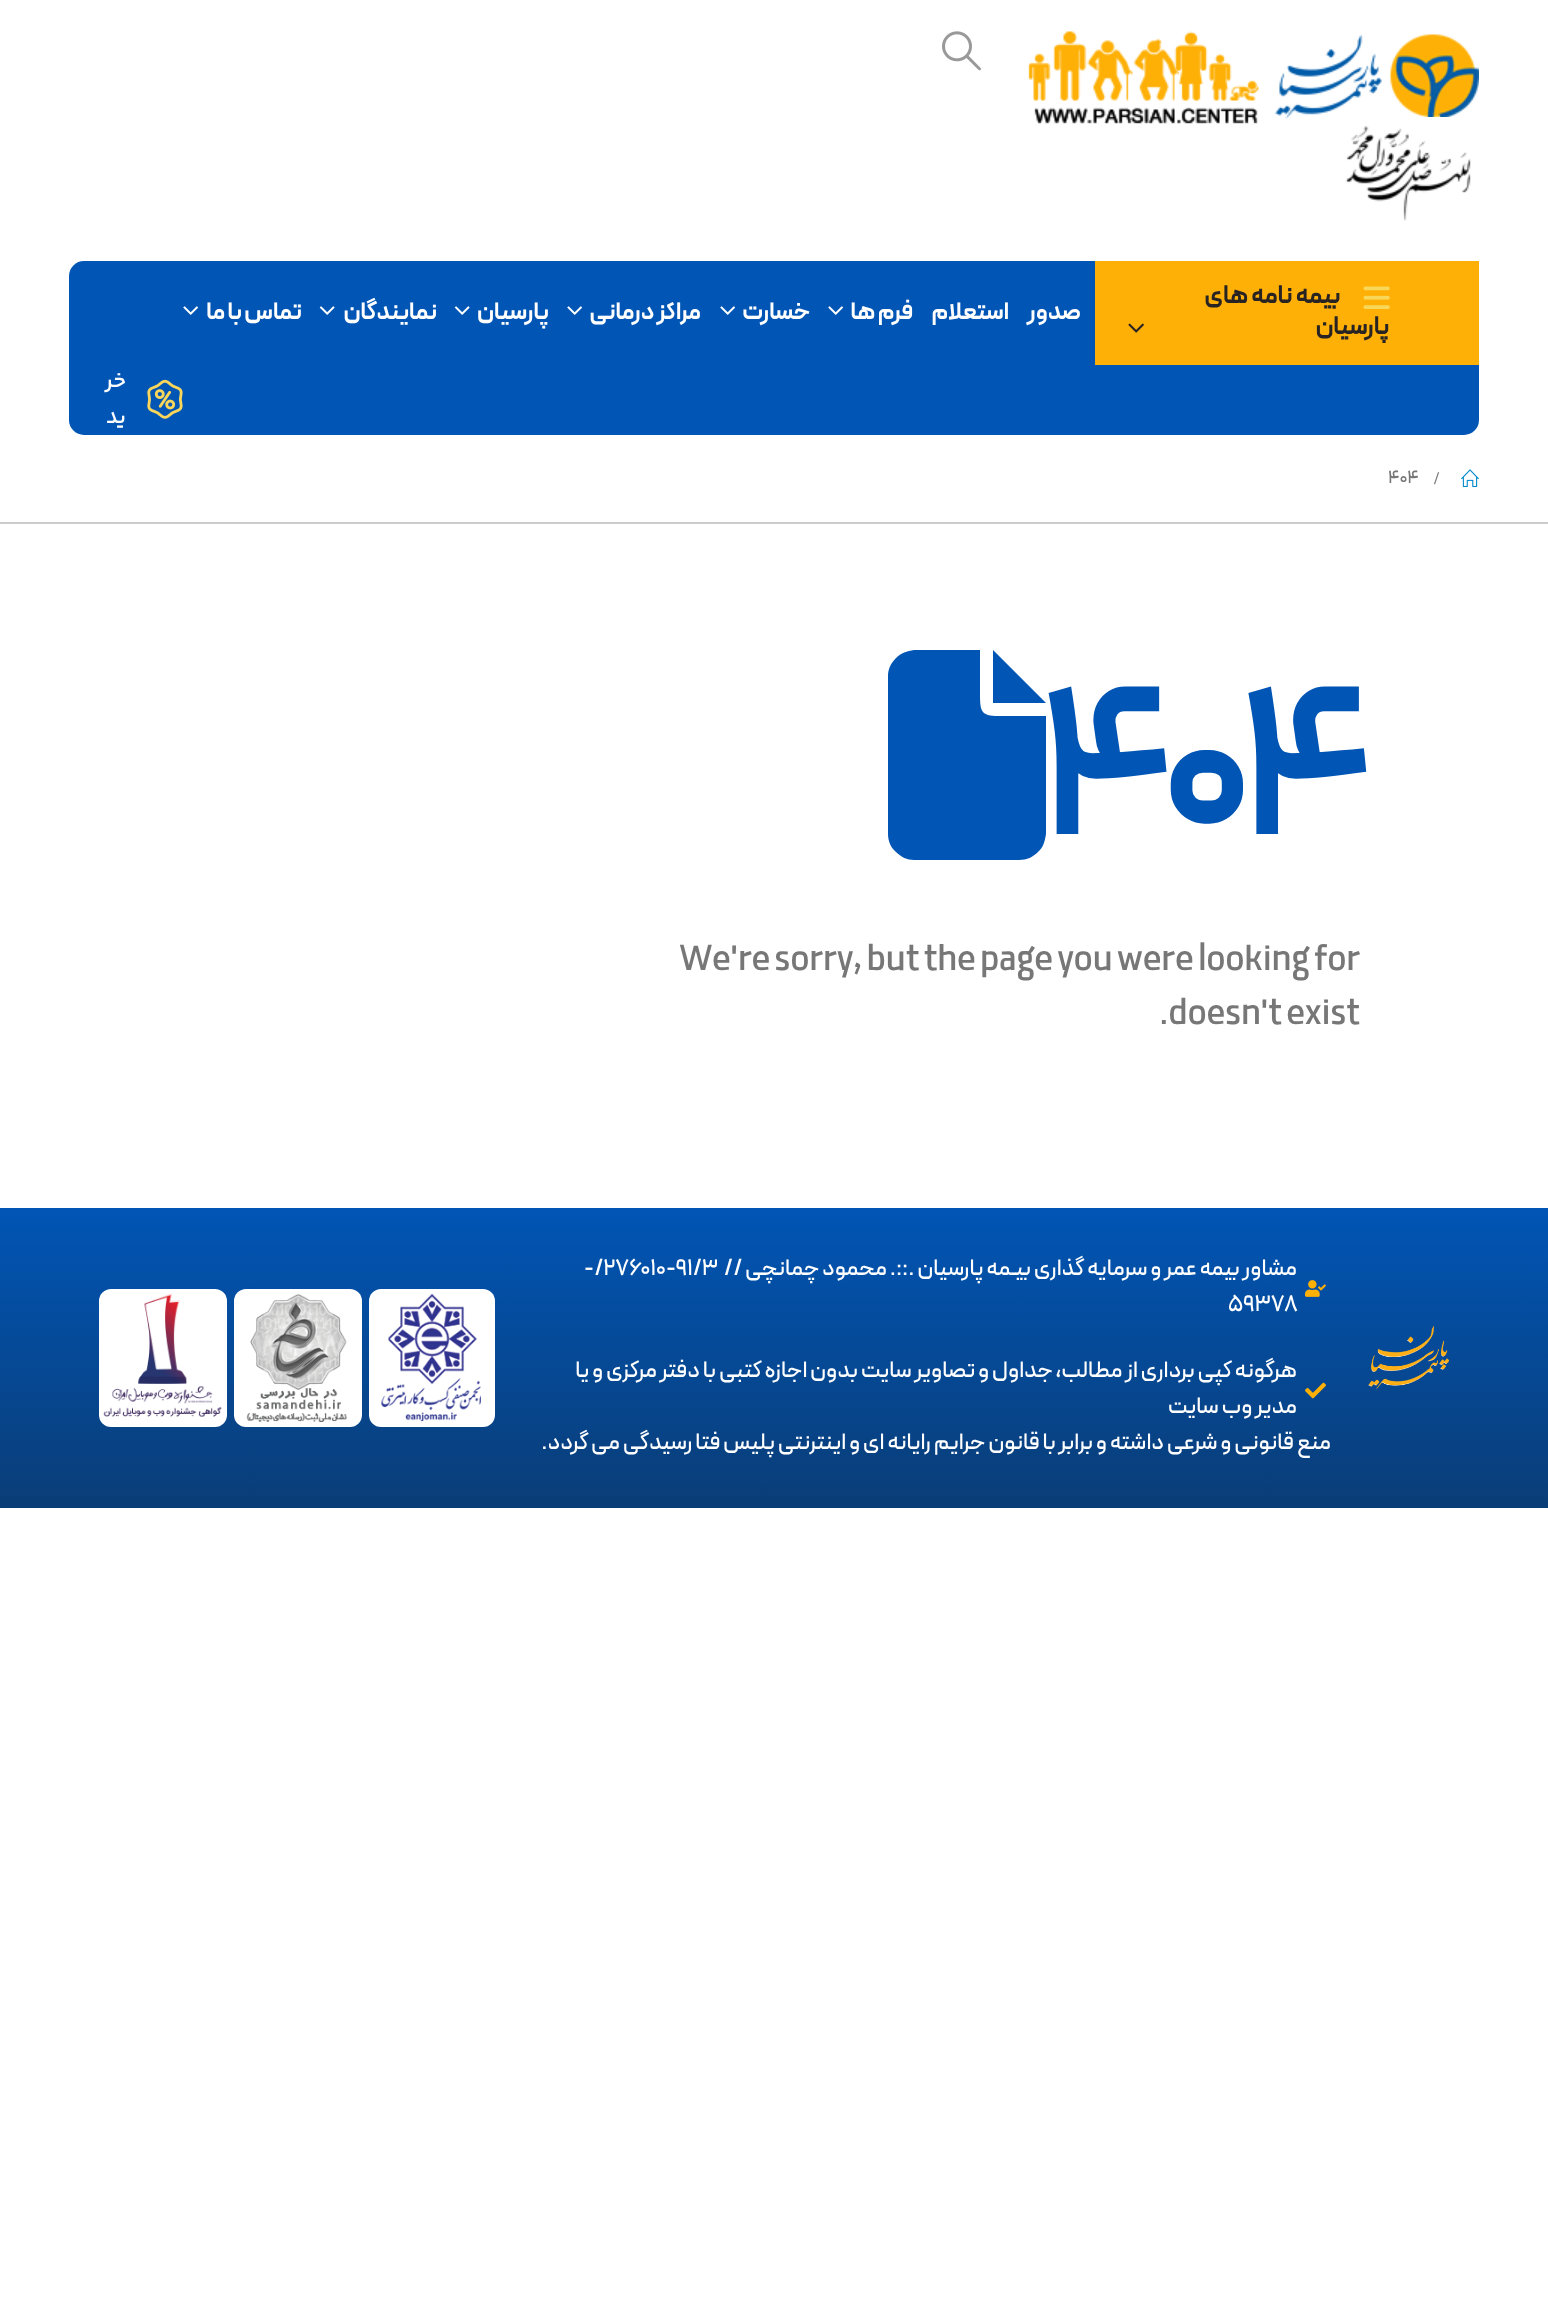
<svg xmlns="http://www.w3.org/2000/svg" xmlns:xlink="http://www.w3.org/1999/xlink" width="1548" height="2308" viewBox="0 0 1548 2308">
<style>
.cls-1{font:bold 25.5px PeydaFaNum;direction:rtl;fill:#292424}
.cls-2{font:bold 24px 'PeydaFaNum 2';direction:rtl;fill:#ffffff}
.cls-3{font:600 22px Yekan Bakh;letter-spacing:-1px;direction:rtl;fill:#ffffff}
.cls-4{font:bold 18px Liberation Serif;fill:#777777}
.cls-5{font:500 18px PeydaFaNum;fill:#777777}
.cls-6{font:600 210px PeydaFaNum;letter-spacing:-15px;fill:#0155b5}
.cls-7{font:500 35.75px PeydaFaNum;fill:#777777}
.cls-8{font:500 22.95px PeydaFaNum;direction:rtl;fill:#ffffff}
.cls-9{font:500 22.95px PeydaFaNum;fill:#ffffff}
</style>
<defs>
<linearGradient id="g1" gradientUnits="userSpaceOnUse" x1="774" y1="1208" x2="774" y2="1508"><stop offset="0" stop-color="#0155b5"/><stop offset="1" stop-color="#0a3d77"/></linearGradient>
</defs>
<rect width="100%" height="100%" fill="#ffffff"/>
<image xlink:href="image0.png" x="1028" y="31" width="451" height="93"/>
<image xlink:href="image1.png" x="942" y="31" width="39" height="40"/>
<image xlink:href="image2.png" x="1345" y="117" width="126" height="104"/>
<rect fill="#0155b5" x="69" y="261" width="1410" height="174" rx="15"/>
<rect fill="#ffb007" x="1095" y="261" width="384" height="104"/>
<image xlink:href="image3.png" x="1363" y="286" width="27" height="23"/>
<image xlink:href="image4.png" x="1128" y="323" width="16" height="10"/>
<image xlink:href="image5.png" x="828" y="306" width="15" height="9"/>
<image xlink:href="image5.png" x="720" y="306" width="15" height="9"/>
<image xlink:href="image5.png" x="567" y="306" width="15" height="9"/>
<image xlink:href="image6.png" x="454" y="306" width="16" height="9"/>
<image xlink:href="image6.png" x="319" y="306" width="16" height="9"/>
<image xlink:href="image5.png" x="183" y="306" width="15" height="9"/>
<image xlink:href="image7.png" x="147" y="379" width="36" height="40"/>
<rect fill="#cccccc" x="0" y="522" width="1548" height="2"/>
<image xlink:href="image8.png" x="1461" y="469" width="18" height="18"/>
<path fill="#0155b5" d="M888 676C888 669 891 663 896 658C901 653 907 651 914 650H980V694C980 714 982 716 1002 716H1046V834C1045 841 1043 848 1038 852C1033 857 1027 860 1019 860H914C907 860 901 857 896 852C891 848 888 841 888 834ZM1046 703H993V650Z"/>
<rect fill="url(#g1)" x="0" y="1208" width="1548" height="300"/>
<image xlink:href="image9.png" x="1368" y="1326" width="81" height="63"/>
<image xlink:href="image10.png" x="1305" y="1280" width="21" height="17"/>
<image xlink:href="image11.png" x="1305" y="1382" width="21" height="17"/>
<rect fill="#ffffff" x="369" y="1289" width="126" height="138" rx="12"/>
<image xlink:href="image12.png" x="381" y="1294" width="100" height="128"/>
<rect fill="#ffffff" x="234" y="1289" width="128" height="138" rx="12"/>
<image xlink:href="image13.png" x="246" y="1294" width="102" height="128"/>
<rect fill="#ffffff" x="99" y="1289" width="128" height="138" rx="12"/>
<image xlink:href="image14.png" x="103" y="1293" width="119" height="124"/>
<text class="cls-1" x="1340" y="303">بیمه نامه های</text>
<text class="cls-1" x="1389" y="334">پارسیان</text>
<text class="cls-2" x="1081" y="319">صدور</text>
<text class="cls-2" x="1009" y="319">استعلام</text>
<text class="cls-2" x="913" y="319">فرم ها</text>
<text class="cls-2" x="810" y="319">خسارت</text>
<text class="cls-2" x="701" y="319">مراکز درمانی</text>
<text class="cls-2" x="549" y="319">پارسیان</text>
<text class="cls-2" x="437" y="319">نمایندگان</text>
<text class="cls-2" x="302" y="319">تماس با ما</text>
<text class="cls-3"><tspan x="126" y="387">خر</tspan><tspan x="126" y="423">ید</tspan></text>
<text class="cls-4" x="1434" y="484">/</text>
<text class="cls-5" x="1388" y="483">404</text>
<text class="cls-6" x="1039" y="834">404</text>
<text class="cls-7" x="679" y="970">We're sorry, but the page you were looking for</text>
<text class="cls-7" x="1159" y="1024">.doesn't exist</text>
<text class="cls-8" x="1297" y="1275">مشاور بیمه عمر و سرمایه گذاری بیـمه پارسیان .::. محمود چمانچی //</text>
<text class="cls-9" x="584" y="1275">-/٢٧۶۰١۰-٩١/٣</text>
<text class="cls-9" x="1228" y="1311">۵٩٣٧٨</text>
<text class="cls-8"><tspan x="1297" y="1377">هرگونه کپی برداری از مطالب، جداول و تصاویر سایت بدون اجازه کتبی با دفتر مرکزی و یا</tspan><tspan x="1297" y="1413">مدیر وب سایت</tspan></text>
<text class="cls-8" x="1331" y="1449">منع قانونی و شرعی داشته و برابر با قانون جرایم رایانه ای و اینترنتی پلیس فتا رسیدگی می گردد.</text>
</svg>
